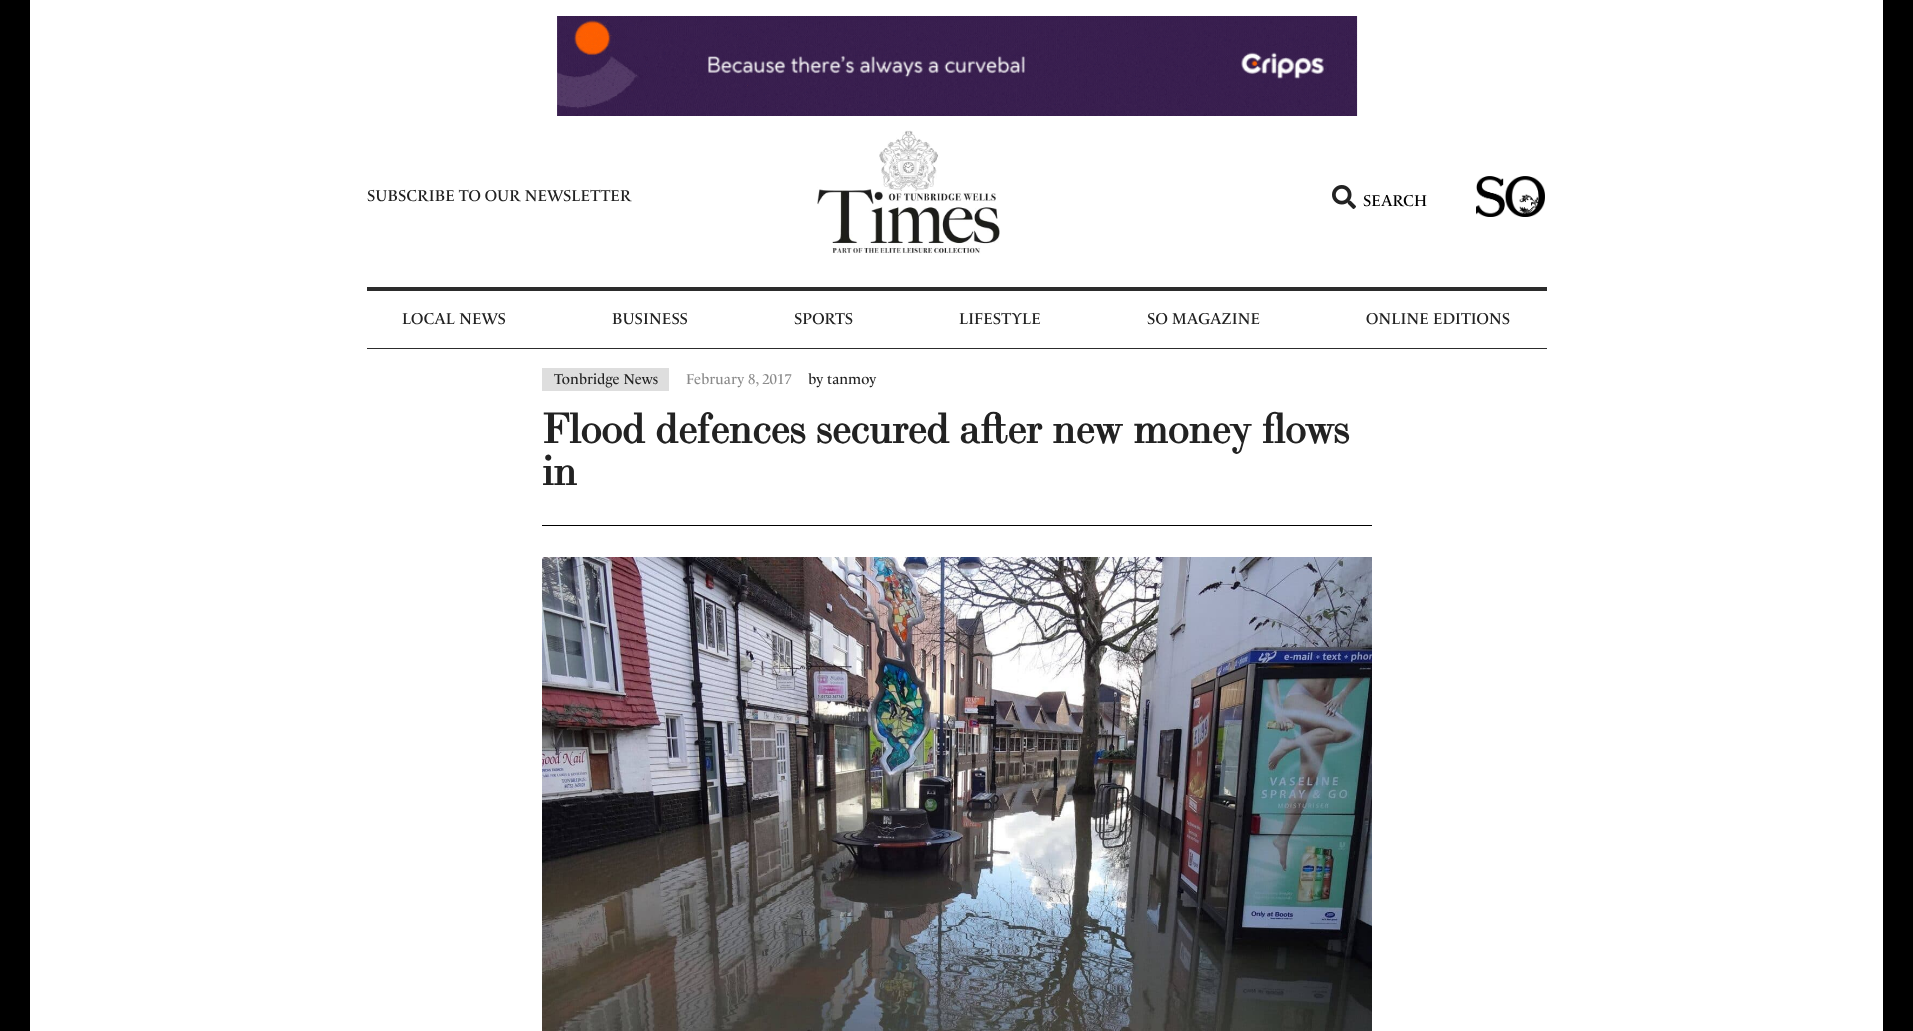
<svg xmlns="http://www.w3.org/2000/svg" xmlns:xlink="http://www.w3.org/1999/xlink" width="1913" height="1031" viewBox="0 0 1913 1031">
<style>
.cls-1{font:16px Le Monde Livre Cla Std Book;fill:#222222}
.cls-2{font:16px Le Monde Livre Cla Std Book;fill:#000000}
.cls-3{font:14.5px Le Monde Livre Cla Std Book;fill:#222222}
.cls-4{font:14.5px Le Monde Livre Cla Std Book;fill:#8b8b8b}
.cls-5{font:bold 41.6px 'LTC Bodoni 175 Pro';fill:#222222}
</style>
<rect width="100%" height="100%" fill="#ffffff"/>
<rect fill="#000000" x="1883" y="0" width="30" height="1031"/>
<rect fill="#000000" x="0" y="0" width="30" height="1031"/>
<image xlink:href="image0.png" x="557" y="16" width="801" height="100"/>
<image xlink:href="image1.png" x="817" y="130" width="183" height="124"/>
<image xlink:href="image2.png" x="1332" y="185" width="24" height="24"/>
<image xlink:href="image3.png" x="1476" y="176" width="69" height="41"/>
<rect fill="#2c2c2c" x="367" y="287" width="1180" height="4"/>
<rect fill="#2c2c2c" x="367" y="348" width="1180" height="1"/>
<rect fill="#dedede" x="542" y="368" width="127" height="23"/>
<rect fill="#000000" x="542" y="525" width="830" height="1"/>
<image xlink:href="image4.png" x="542" y="557" width="830" height="474"/>
<text class="cls-1" x="367" y="201">SUBSCRIBE TO OUR NEWSLETTER</text>
<text class="cls-2" x="1363" y="206">SEARCH</text>
<text class="cls-1" x="402" y="324">LOCAL NEWS</text>
<text class="cls-1" x="612" y="324">BUSINESS</text>
<text class="cls-1" x="794" y="324">SPORTS</text>
<text class="cls-1" x="959" y="324">LIFESTYLE</text>
<text class="cls-1" x="1147" y="324">SO MAGAZINE</text>
<text class="cls-1" x="1366" y="324">ONLINE EDITIONS</text>
<text class="cls-3" x="554" y="384">Tonbridge News</text>
<text class="cls-4" x="686" y="384">February 8, 2017</text>
<text class="cls-3" x="808" y="384">by tanmoy</text>
<text class="cls-5"><tspan x="542" y="443">Flood defences secured after new money flows</tspan><tspan x="542" y="485">in</tspan></text>
</svg>
